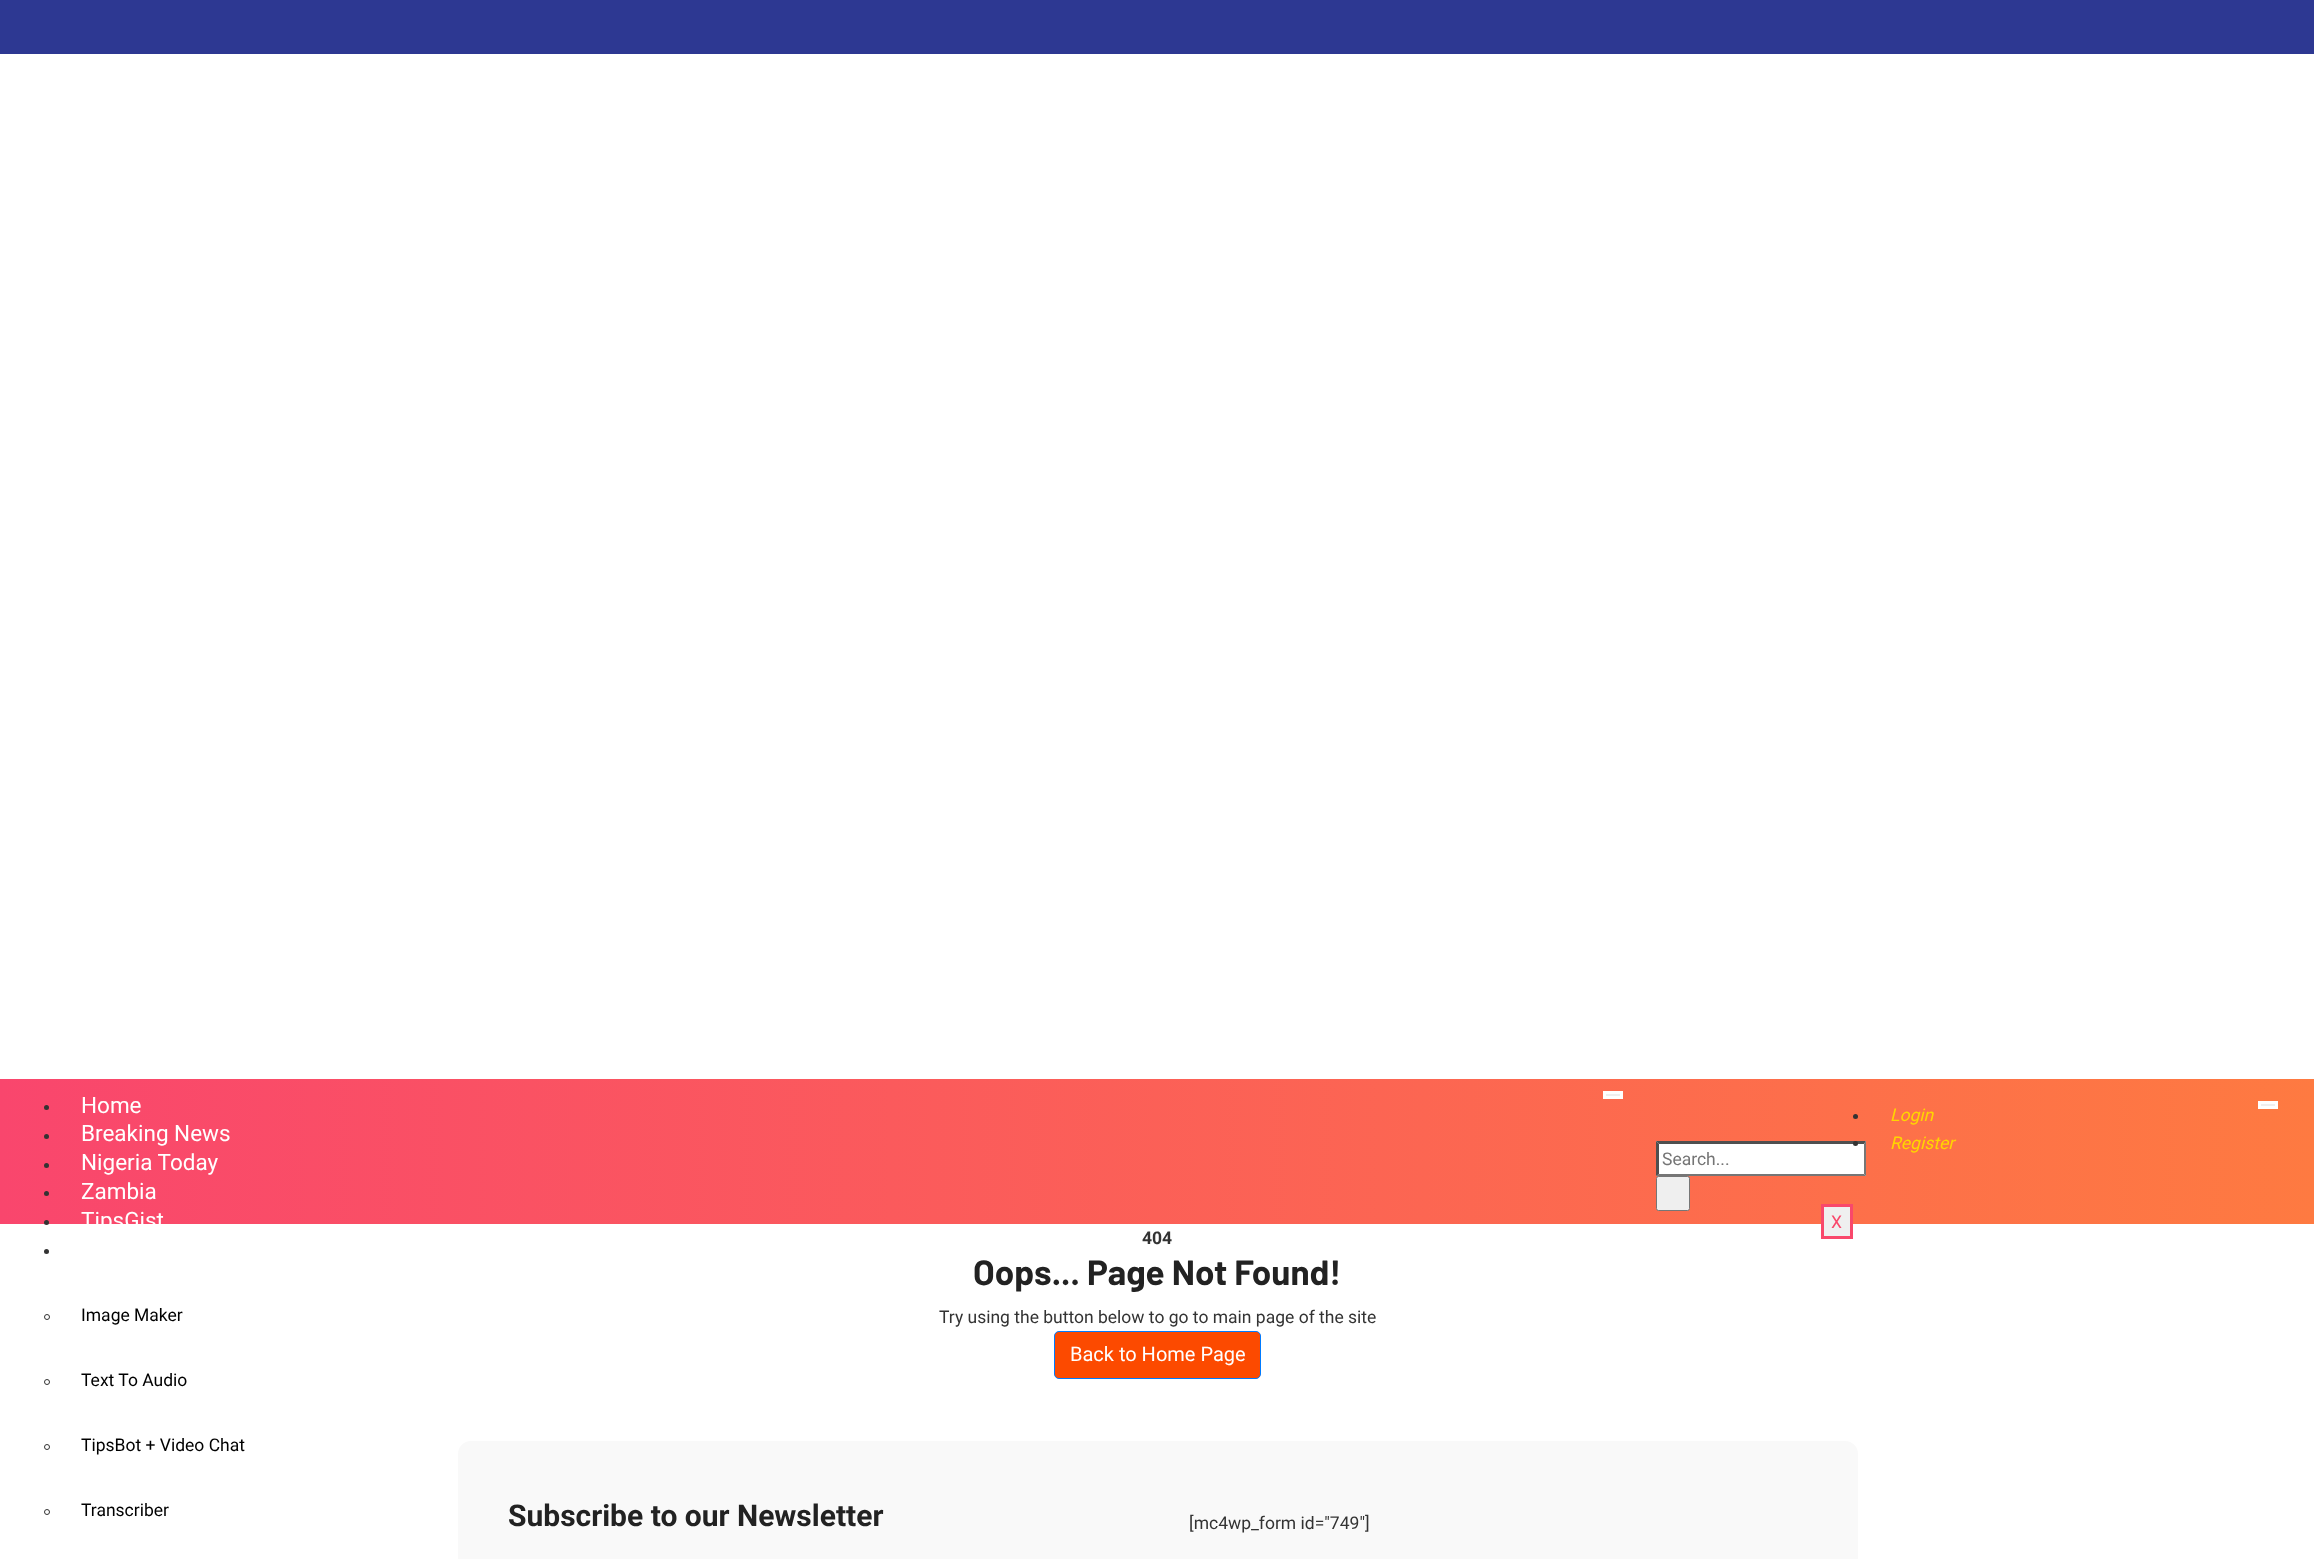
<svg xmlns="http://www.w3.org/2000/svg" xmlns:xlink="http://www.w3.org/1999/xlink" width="2314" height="1559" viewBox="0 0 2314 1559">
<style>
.cls-1{font:22.5px Roboto;fill:#ffffff}
.cls-2{font:17.5px Roboto;fill:#000000}
.cls-3{font:17.5px Roboto;fill:#757575}
.cls-4{font:italic 17.5px Roboto;fill:#ffd500}
.cls-5{font:17.5px Roboto;fill:#f9486b}
.cls-6{font:bold 17.5px Roboto;fill:#333333}
.cls-7{font:bold 35px Barlow;fill:#222222}
.cls-8{font:17.5px Roboto;fill:#333333}
.cls-9{font:20px Roboto;fill:#ffffff}
.cls-10{font:bold 30px Roboto;fill:#222222}
</style>
<defs>
<linearGradient id="g1" gradientUnits="userSpaceOnUse" x1="0" y1="1151" x2="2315" y2="1151"><stop offset="0" stop-color="#f9466d"/><stop offset="1" stop-color="#fe7a41"/></linearGradient>
</defs>
<rect width="100%" height="100%" fill="#ffffff"/>
<rect fill="#2d3892" x="0" y="0" width="2314" height="54"/>
<rect fill="url(#g1)" x="0" y="1079" width="2314" height="145"/>
<rect fill="#efefef" stroke="#ffffff" stroke-width="3" x="1604.5" y="1092.5" width="17" height="5"/>
<circle fill="#333333" cx="46.5" cy="1107.5" r="2.5"/>
<circle fill="#333333" cx="46.5" cy="1136.5" r="2.5"/>
<circle fill="#333333" cx="46.5" cy="1165.5" r="2.5"/>
<circle fill="#333333" cx="46.5" cy="1193.5" r="2.5"/>
<circle fill="#333333" cx="46.5" cy="1222.5" r="2.5"/>
<circle fill="#333333" cx="46.5" cy="1251.5" r="2.5"/>
<circle fill="none" stroke="#333333" cx="47" cy="1317" r="2.5"/>
<circle fill="none" stroke="#333333" cx="47" cy="1382" r="2.5"/>
<circle fill="none" stroke="#333333" cx="47" cy="1447" r="2.5"/>
<circle fill="none" stroke="#333333" cx="47" cy="1512" r="2.5"/>
<rect fill="#ffffff" x="1656" y="1141" width="210" height="35"/>
<path fill="#4f4f4f" d="M1656 1141H1866L1864 1144H1659Z"/>
<path fill="#767676" d="M1866 1141V1176L1864 1174V1144Z"/>
<path fill="#767676" d="M1866 1176H1656L1659 1174H1864Z"/>
<path fill="#4f4f4f" d="M1656 1176V1141L1659 1144V1174Z"/>
<rect fill="#efefef" stroke="#767676" x="1656.5" y="1176.5" width="33" height="34" rx="2"/>
<rect fill="#efefef" stroke="#ffffff" stroke-width="3" x="2259.5" y="1102.5" width="17" height="5"/>
<circle fill="#333333" cx="1855.5" cy="1116.5" r="2.5"/>
<circle fill="#333333" cx="1855.5" cy="1143.5" r="2.5"/>
<rect fill="#efefef" stroke="#f9486b" stroke-width="3" x="1822.5" y="1205.5" width="29" height="32"/>
<rect fill="#fc4a00" stroke="#007bff" x="1054.5" y="1331.5" width="206" height="47" rx="4.5"/>
<rect fill="#f9f9f9" x="458" y="1441" width="1400" height="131" rx="13"/>
<text class="cls-1"><tspan x="81" y="1113">Home</tspan><tspan x="81" y="1141">Breaking News</tspan><tspan x="81" y="1170">Nigeria Today</tspan><tspan x="81" y="1199">Zambia</tspan><tspan x="81" y="1228">TipsGist</tspan></text>
<text class="cls-2" x="81" y="1321">Image Maker</text>
<text class="cls-2" x="81" y="1386">Text To Audio</text>
<text class="cls-2" x="81" y="1451">TipsBot + Video Chat</text>
<text class="cls-2" x="81" y="1516">Transcriber</text>
<text class="cls-3" x="1662" y="1165">Search...</text>
<text class="cls-4"><tspan x="1890" y="1121">Login</tspan><tspan x="1890" y="1149">Register</tspan></text>
<text class="cls-5" x="1831" y="1228">X</text>
<text class="cls-6" x="1142" y="1244">404</text>
<text class="cls-7" x="973" y="1285">Oops... Page Not Found!</text>
<text class="cls-8" x="939" y="1323">Try using the button below to go to main page of the site</text>
<text class="cls-9" x="1070" y="1361">Back to Home Page</text>
<text class="cls-10" x="508" y="1526">Subscribe to our Newsletter</text>
<text class="cls-8" x="1189" y="1529">[mc4wp_form id="749"]</text>
</svg>
